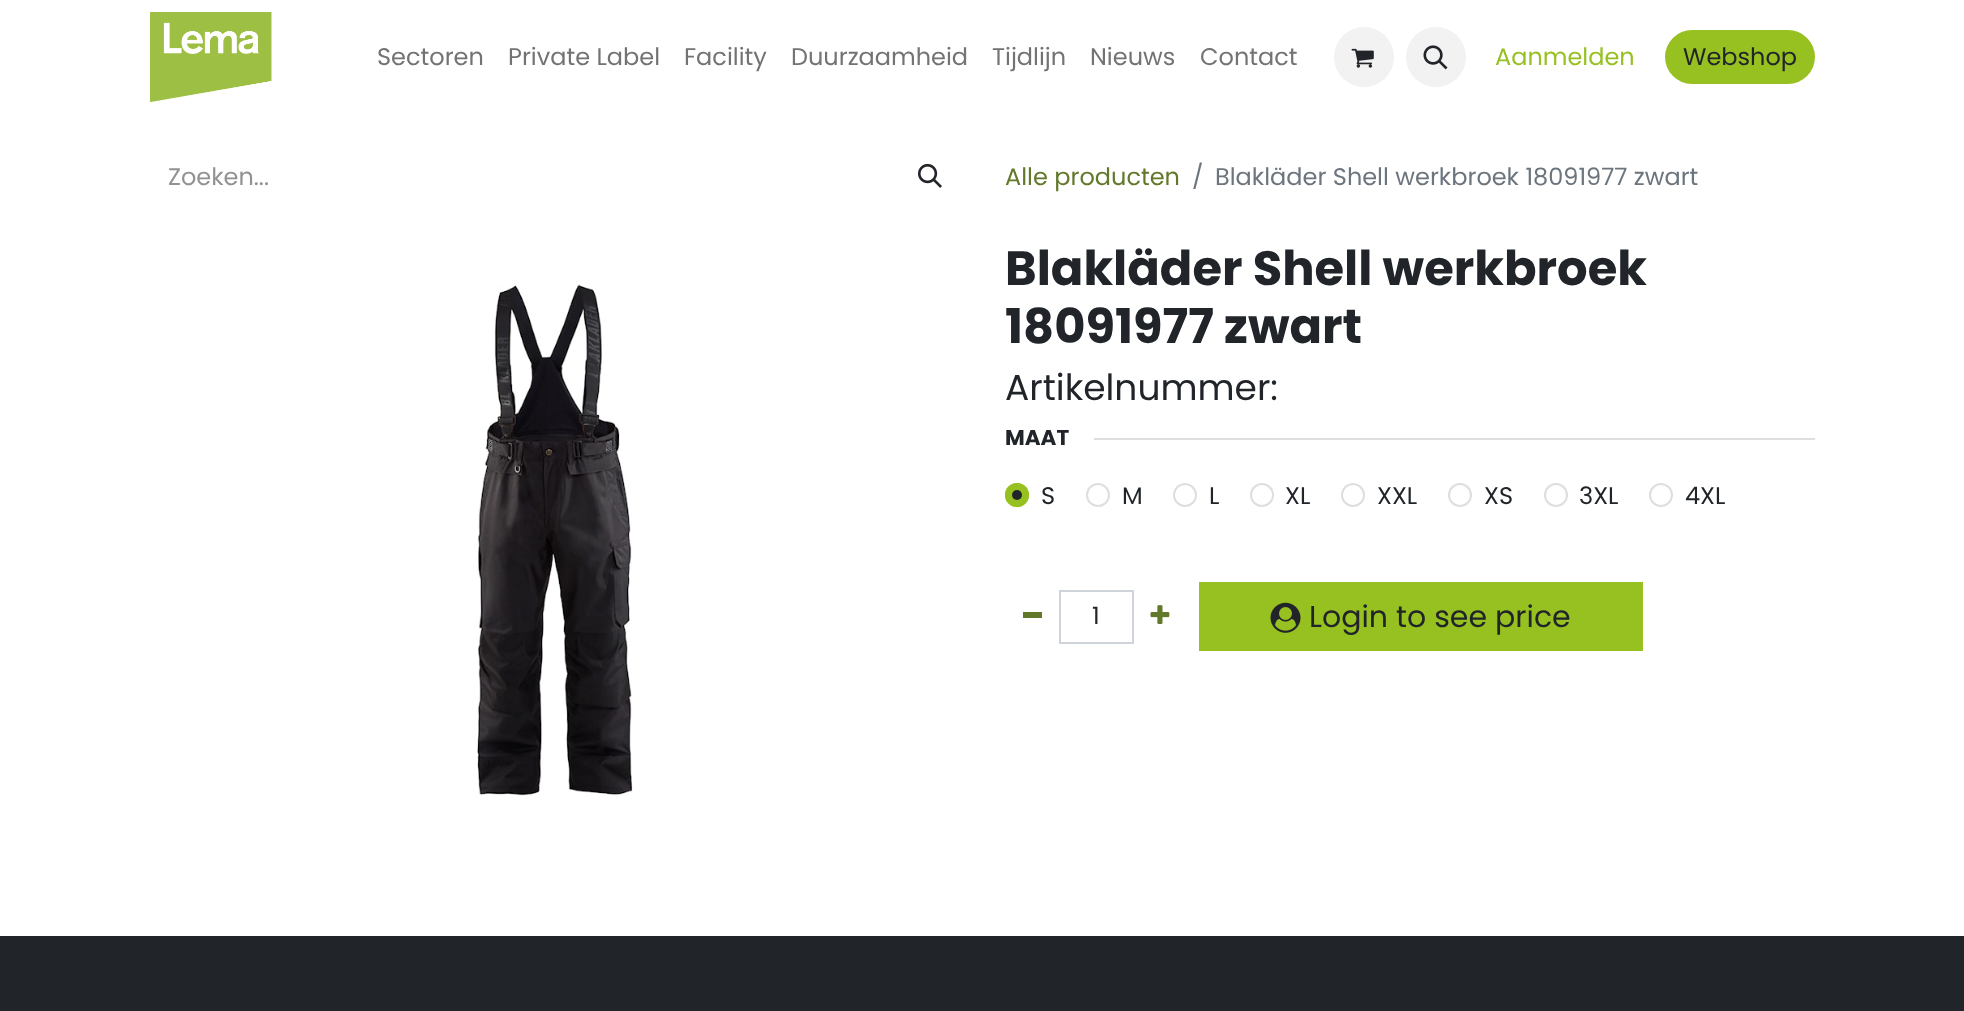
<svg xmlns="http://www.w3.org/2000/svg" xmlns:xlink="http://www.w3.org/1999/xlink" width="1964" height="1011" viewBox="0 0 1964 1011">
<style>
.cls-1{font:24px Poppins;fill:#737373}
.cls-2{font:24px Poppins;fill:#97c021}
.cls-3{font:24px Poppins;fill:#212529}
.cls-4{font:24px Poppins;fill:#909294}
.cls-5{font:24px Poppins;fill:#62782a}
.cls-6{font:24px Poppins;fill:#6c757d}
.cls-7{font:bold 48px Poppins;fill:#212529}
.cls-8{font:36px Poppins;fill:#212529}
.cls-9{font:bold 21.5px Poppins;fill:#212529}
.cls-10{font:30px Poppins;fill:#212529}
</style>
<rect width="100%" height="100%" fill="#ffffff"/>
<image xlink:href="image0.png" x="150" y="12" width="122" height="90"/>
<circle fill="#f2f2f2" cx="1364" cy="57" r="30"/>
<image xlink:href="image1.png" x="1351" y="48" width="23" height="20"/>
<circle fill="#f2f2f2" cx="1436" cy="57" r="30"/>
<image xlink:href="image2.png" x="1423" y="45" width="25" height="25"/>
<rect fill="#97c021" x="1665" y="30" width="150" height="54" rx="27"/>
<image xlink:href="image3.png" x="918" y="163" width="24" height="25"/>
<image xlink:href="image4.png" x="477" y="284" width="156" height="512"/>
<rect fill="#dededf" x="1094" y="438" width="721" height="2"/>
<circle fill="#97c021" cx="1017" cy="495" r="12"/>
<circle fill="#212529" cx="1017" cy="495" r="5"/>
<circle fill="none" stroke="#97c021" stroke-width="2" cx="1017" cy="495" r="11"/>
<circle fill="none" stroke="#dededf" stroke-width="2" cx="1098" cy="495" r="11"/>
<circle fill="none" stroke="#dededf" stroke-width="2" cx="1185" cy="495" r="11"/>
<circle fill="none" stroke="#dededf" stroke-width="2" cx="1262" cy="495" r="11"/>
<circle fill="none" stroke="#dededf" stroke-width="2" cx="1353" cy="495" r="11"/>
<circle fill="none" stroke="#dededf" stroke-width="2" cx="1460" cy="495" r="11"/>
<circle fill="none" stroke="#dededf" stroke-width="2" cx="1556" cy="495" r="11"/>
<circle fill="none" stroke="#dededf" stroke-width="2" cx="1661" cy="495" r="11"/>
<rect fill="#62782a" x="1023" y="612" width="19" height="6"/>
<rect fill="none" stroke="#ced4da" stroke-width="2" x="1060" y="591" width="73" height="52"/>
<image xlink:href="image5.png" x="1150" y="605" width="20" height="19"/>
<rect fill="#97c021" x="1199" y="582" width="444" height="69"/>
<image xlink:href="image6.png" x="1270" y="602" width="31" height="31"/>
<rect fill="#212529" x="0" y="936" width="1964" height="75"/>
<text class="cls-1" x="377" y="65">Sectoren</text>
<text class="cls-1" x="508" y="65">Private Label</text>
<text class="cls-1" x="684" y="65">Facility</text>
<text class="cls-1" x="791" y="65">Duurzaamheid</text>
<text class="cls-1" x="992" y="65">Tijdlijn</text>
<text class="cls-1" x="1090" y="65">Nieuws</text>
<text class="cls-1" x="1200" y="65">Contact</text>
<text class="cls-2" x="1495" y="65">Aanmelden</text>
<text class="cls-3" x="1683" y="65">Webshop</text>
<text class="cls-4" x="168" y="185">Zoeken...</text>
<text class="cls-5" x="1005" y="185">Alle producten</text>
<text class="cls-6" x="1192" y="185">/</text>
<text class="cls-6" x="1215" y="185">Blakläder Shell werkbroek 18091977 zwart</text>
<text class="cls-7"><tspan x="1005" y="285">Blakläder Shell werkbroek</tspan><tspan x="1005" y="343">18091977 zwart</tspan></text>
<text class="cls-8" x="1005" y="400">Artikelnummer:</text>
<text class="cls-9" x="1005" y="445">MAAT</text>
<text class="cls-3" x="1041" y="504">S</text>
<text class="cls-3" x="1122" y="504">M</text>
<text class="cls-3" x="1209" y="504">L</text>
<text class="cls-3" x="1285" y="504">XL</text>
<text class="cls-3" x="1377" y="504">XXL</text>
<text class="cls-3" x="1484" y="504">XS</text>
<text class="cls-3" x="1579" y="504">3XL</text>
<text class="cls-3" x="1685" y="504">4XL</text>
<text class="cls-3" x="1092" y="624">1</text>
<text class="cls-10" x="1309" y="627">Login to see price</text>
</svg>
